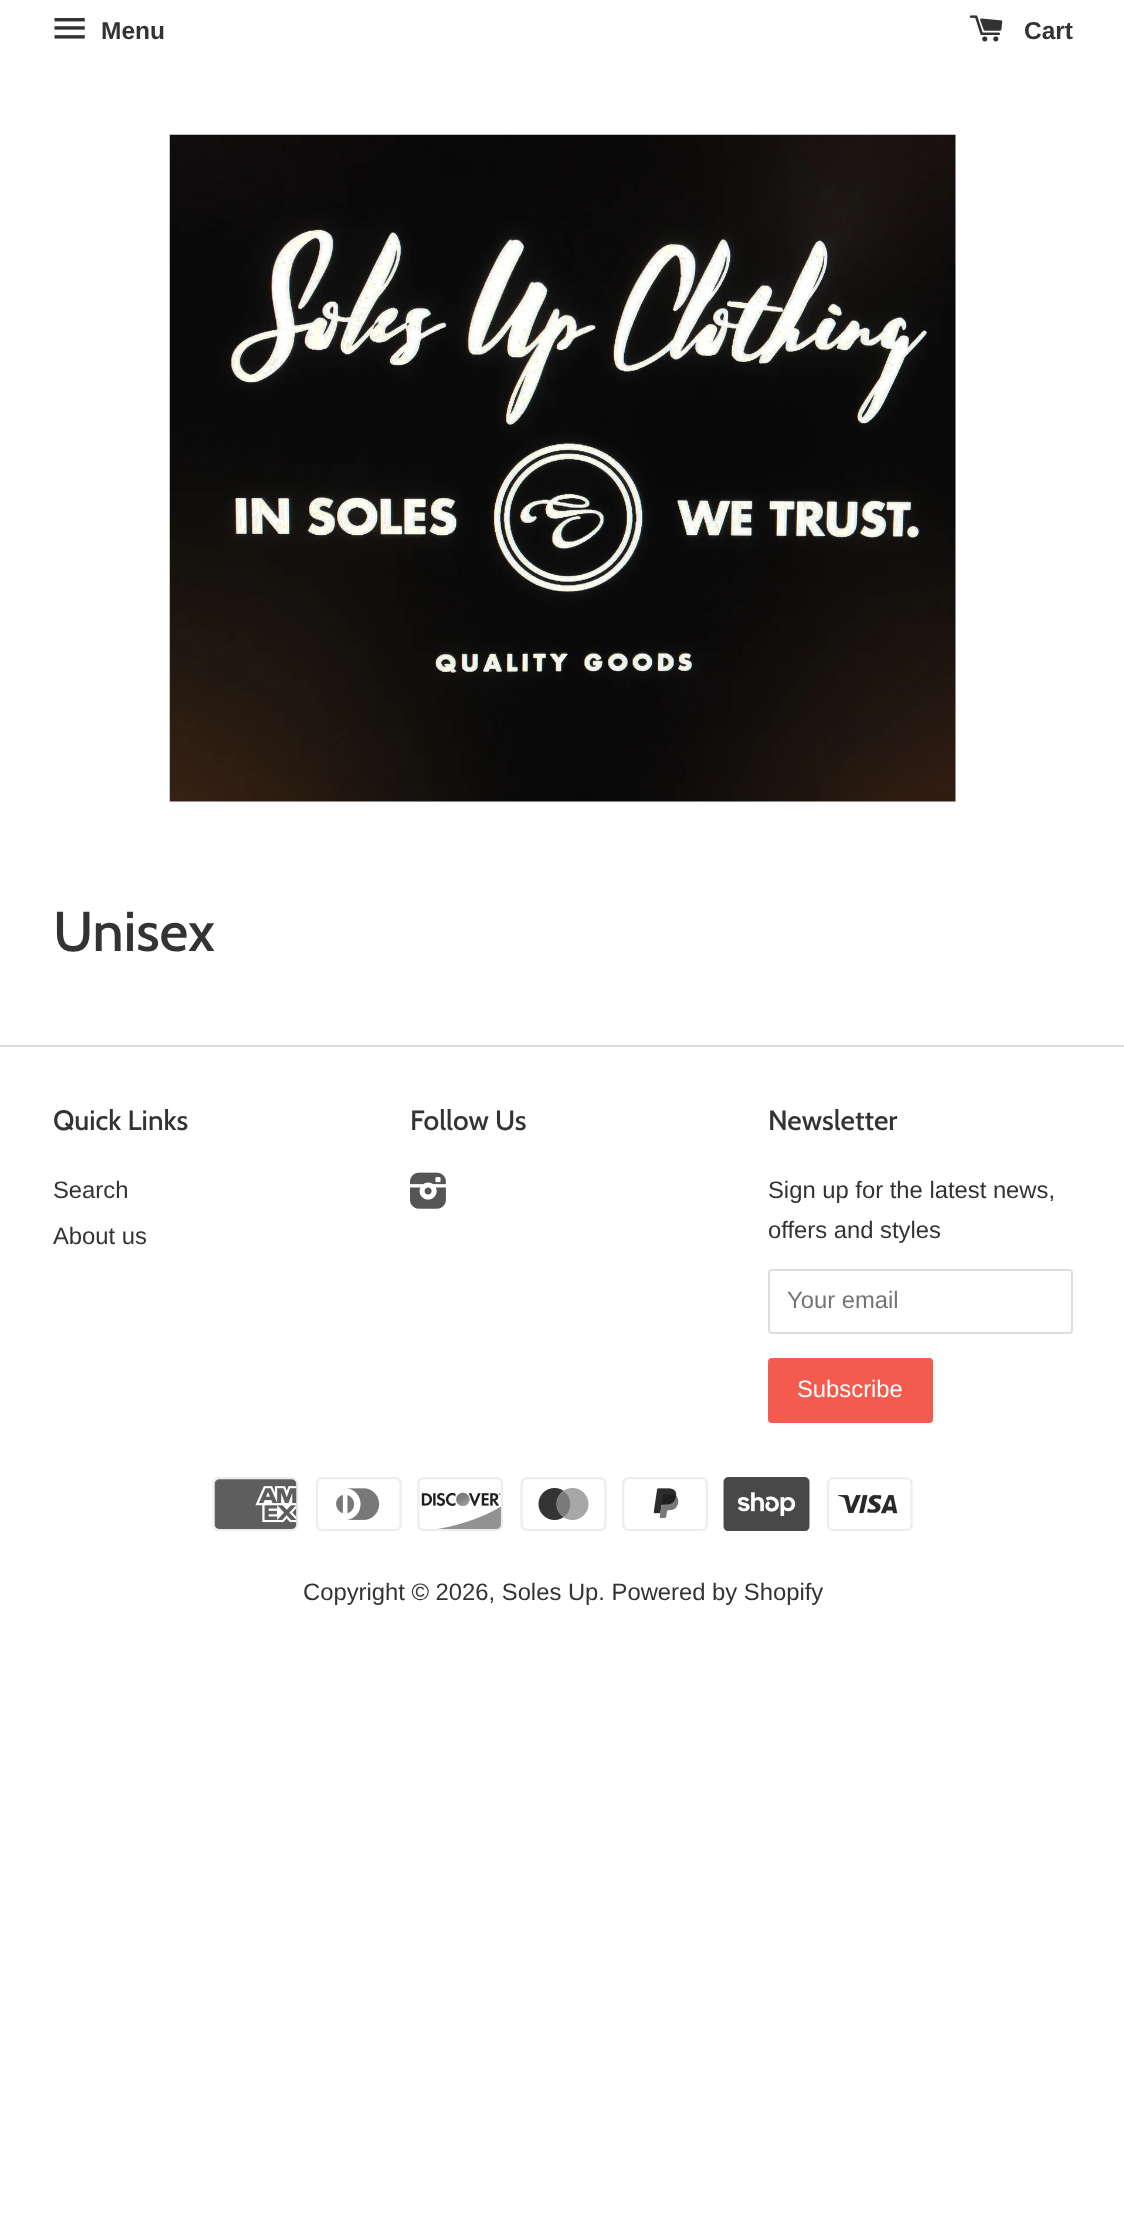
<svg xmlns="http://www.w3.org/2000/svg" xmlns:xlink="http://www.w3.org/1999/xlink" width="1124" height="2227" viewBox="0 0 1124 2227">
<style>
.cls-1{font:bold 24.5px Liberation Sans;fill:#333333}
.cls-2{font:500 56px Cabin;fill:#333333}
.cls-3{font:500 28px Cabin;fill:#333333}
.cls-4{font:23.8px Liberation Sans;fill:#333333}
.cls-5{font:23.8px Liberation Sans;fill:#757575}
.cls-6{font:23.8px Liberation Sans;fill:#ffffff}
</style>
<rect width="100%" height="100%" fill="#ffffff"/>
<image xlink:href="image0.png" x="54" y="18" width="31" height="21"/>
<image xlink:href="image1.png" x="969" y="15" width="34" height="27"/>
<image xlink:href="image2.png" x="169" y="134" width="787" height="668"/>
<rect fill="#dddddd" x="0" y="1045" width="1124" height="2"/>
<image xlink:href="image3.png" x="410" y="1172" width="36" height="37"/>
<rect fill="none" stroke="#dddddd" stroke-width="2" x="769" y="1270" width="303" height="63" rx="3"/>
<rect fill="#f45b4f" x="768" y="1358" width="165" height="65" rx="4"/>
<image xlink:href="image4.png" x="212" y="1477" width="87" height="54"/>
<image xlink:href="image5.png" x="316" y="1477" width="86" height="54"/>
<image xlink:href="image6.png" x="417" y="1477" width="86" height="54"/>
<image xlink:href="image7.png" x="520" y="1477" width="87" height="54"/>
<image xlink:href="image8.png" x="622" y="1477" width="86" height="54"/>
<image xlink:href="image9.png" x="723" y="1477" width="87" height="54"/>
<image xlink:href="image10.png" x="827" y="1477" width="86" height="54"/>
<text class="cls-1" x="101" y="39">Menu</text>
<text class="cls-1" x="1024" y="39">Cart</text>
<text class="cls-2" x="53" y="951">Unisex</text>
<text class="cls-3" x="53" y="1130">Quick Links</text>
<text class="cls-4"><tspan x="53" y="1198">Search</tspan><tspan x="53" y="1244">About us</tspan></text>
<text class="cls-3" x="410" y="1130">Follow Us</text>
<text class="cls-3" x="768" y="1130">Newsletter</text>
<text class="cls-4"><tspan x="768" y="1198">Sign up for the latest news,</tspan><tspan x="768" y="1238">offers and styles</tspan></text>
<text class="cls-5" x="787" y="1308">Your email</text>
<text class="cls-6" x="797" y="1397">Subscribe</text>
<text class="cls-4" x="303" y="1600">Copyright © 2026, Soles Up. Powered by Shopify</text>
</svg>
